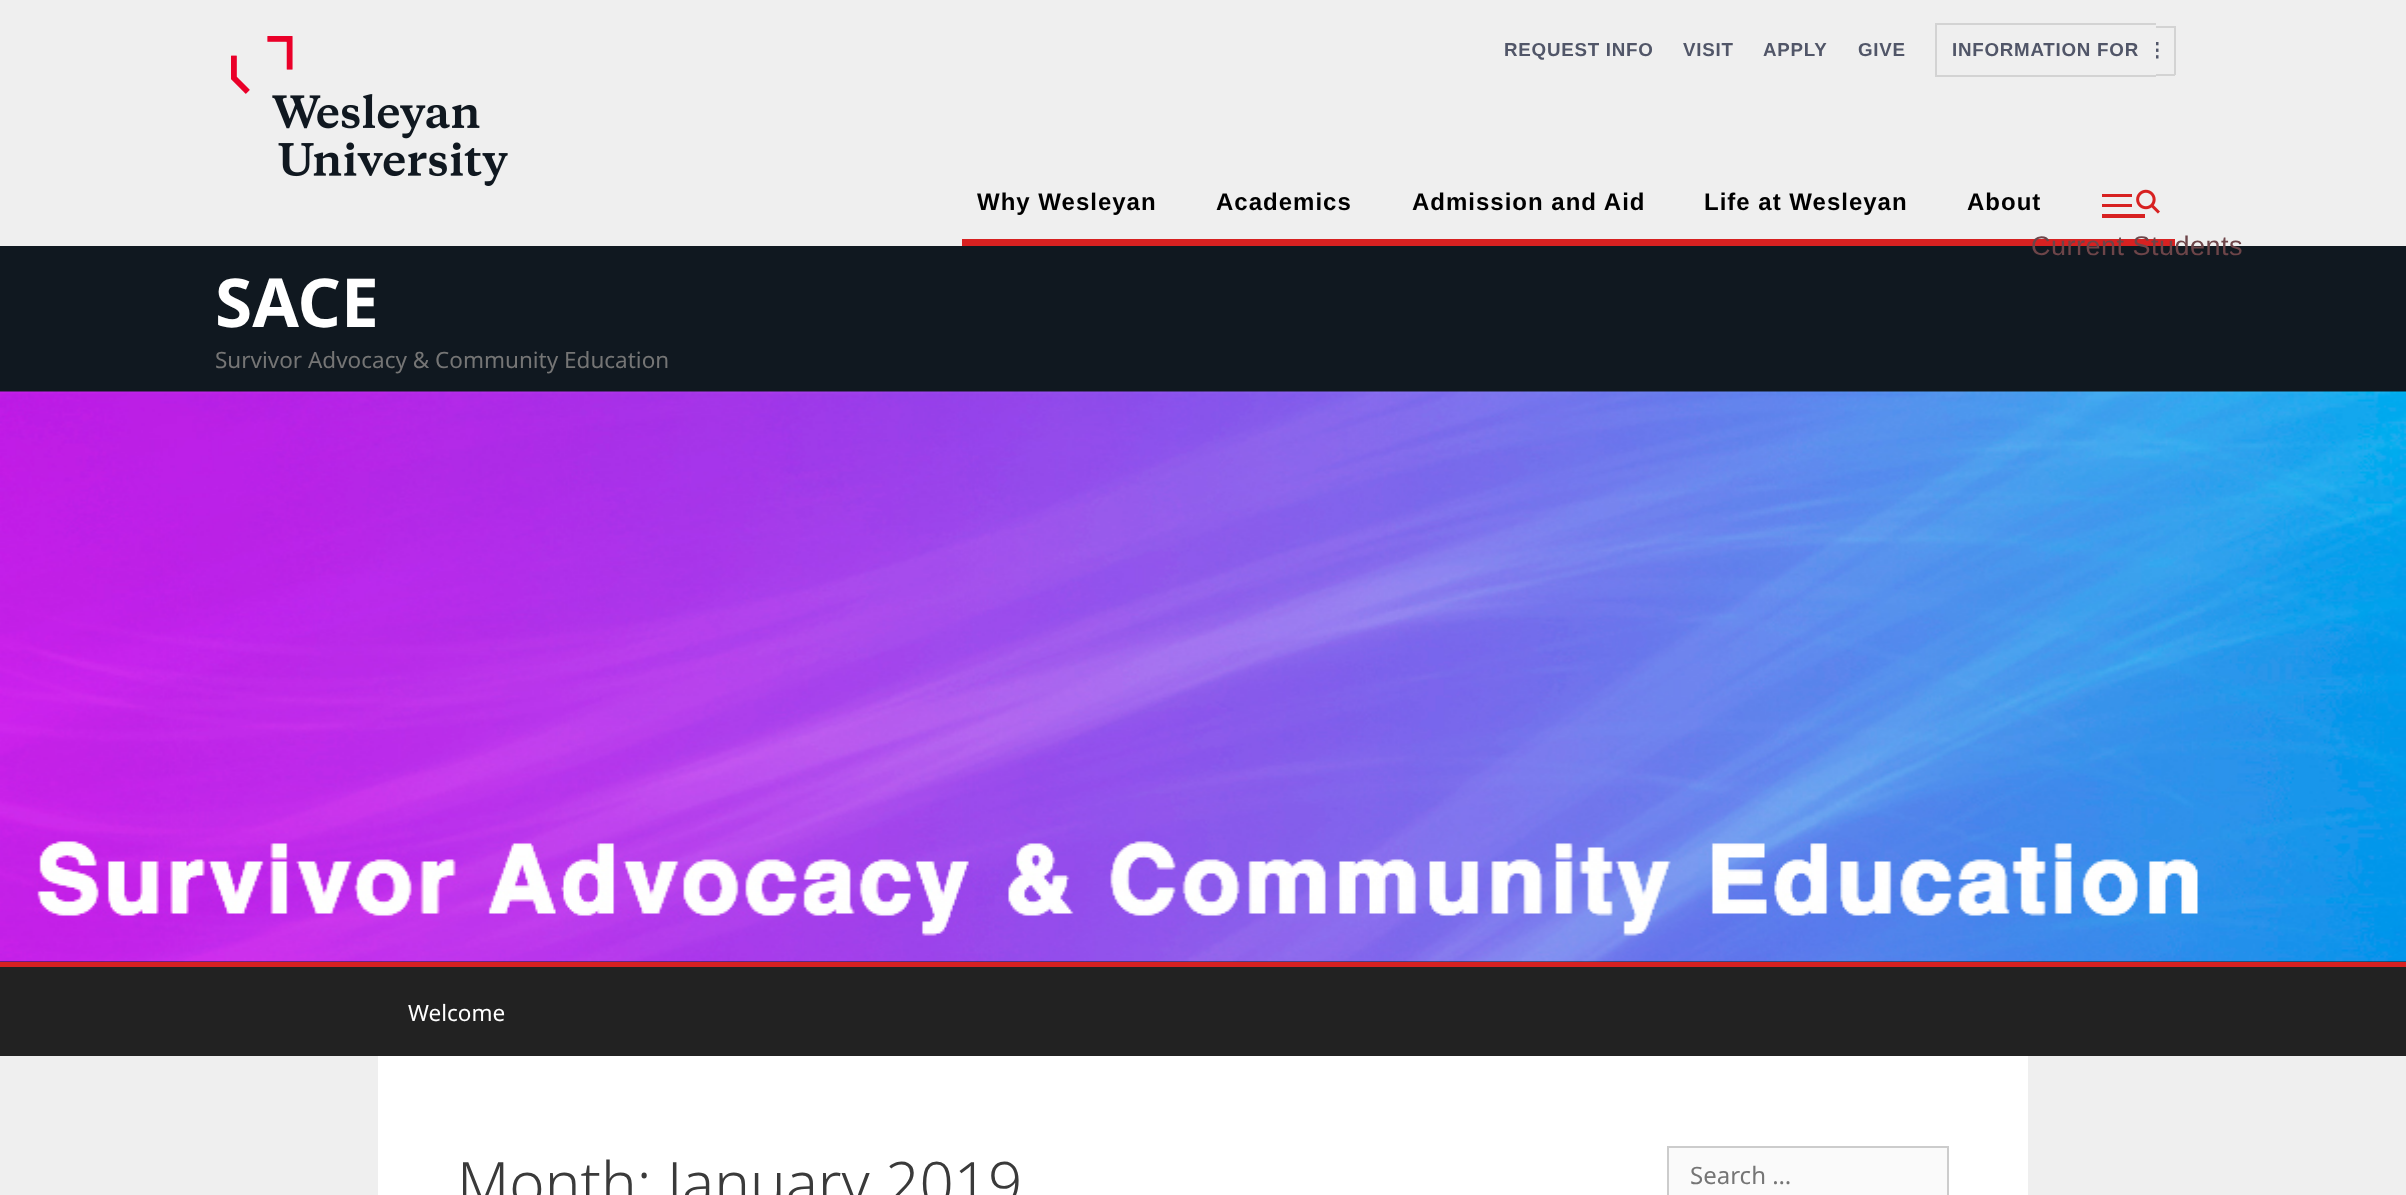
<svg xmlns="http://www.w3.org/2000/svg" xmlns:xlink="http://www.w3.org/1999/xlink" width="2406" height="1195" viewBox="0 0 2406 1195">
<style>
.cls-1{font:bold 18.75px Liberation Sans;letter-spacing:0.75px;fill:#515668}
.cls-2{font:bold 24px Liberation Sans;letter-spacing:1px;fill:#000000}
.cls-3{font:27px Liberation Sans;letter-spacing:0.5px;fill:#6d4549}
.cls-4{font:bold 67.5px Noto Sans;fill:#ffffff}
.cls-5{font:22.5px Noto Sans;fill:#757575}
.cls-6{font:22.5px Noto Sans;fill:#ffffff}
.cls-7{font:300 60px Noto Sans;fill:#3a3a3a}
.cls-8{font:24px Noto Sans;fill:#757575}
</style>
<rect width="100%" height="100%" fill="#efefef"/>
<image xlink:href="image0.png" x="231" y="36" width="277" height="150"/>
<rect fill="#d3d3d3" x="1935" y="23" width="221" height="2"/>
<rect fill="#d3d3d3" x="1935" y="75" width="221" height="2"/>
<rect fill="#d3d3d3" x="1935" y="23" width="2" height="54"/>
<rect fill="#d3d3d3" x="2156" y="26" width="19" height="2"/>
<rect fill="#d3d3d3" x="2174" y="26" width="2" height="49"/>
<rect fill="#d3d3d3" x="2156" y="74" width="19" height="2"/>
<image xlink:href="image1.png" x="2156" y="42" width="3" height="17"/>
<rect fill="#d72121" x="962" y="239" width="1213" height="7"/>
<image xlink:href="image2.png" x="2102" y="189" width="58" height="29"/>
<rect fill="#101820" x="0" y="246" width="2406" height="716"/>
<image xlink:href="image3.png" x="0" y="391" width="2406" height="571"/>
<rect fill="#222222" x="0" y="967" width="2406" height="89"/>
<rect fill="#d72121" x="0" y="962" width="2406" height="5"/>
<rect fill="#ffffff" x="378" y="1056" width="1650" height="139"/>
<rect fill="#fafafa" stroke="#cccccc" stroke-width="2" x="1668" y="1147" width="280" height="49"/>
<text class="cls-1" x="1504" y="56">REQUEST INFO</text>
<text class="cls-1" x="1683" y="56">VISIT</text>
<text class="cls-1" x="1763" y="56">APPLY</text>
<text class="cls-1" x="1858" y="56">GIVE</text>
<text class="cls-1" x="1952" y="56">INFORMATION FOR</text>
<text class="cls-2" x="977" y="210">Why Wesleyan</text>
<text class="cls-2" x="1216" y="210">Academics</text>
<text class="cls-2" x="1412" y="210">Admission and Aid</text>
<text class="cls-2" x="1704" y="210">Life at Wesleyan</text>
<text class="cls-2" x="1967" y="210">About</text>
<text class="cls-3" x="2031" y="255">Current Students</text>
<text class="cls-4" x="215" y="327">SACE</text>
<text class="cls-5" x="215" y="368">Survivor Advocacy &amp; Community Education</text>
<text class="cls-6" x="408" y="1021">Welcome</text>
<text class="cls-7" x="457" y="1205">Month: January 2019</text>
<text class="cls-8" x="1690" y="1184">Search …</text>
</svg>
